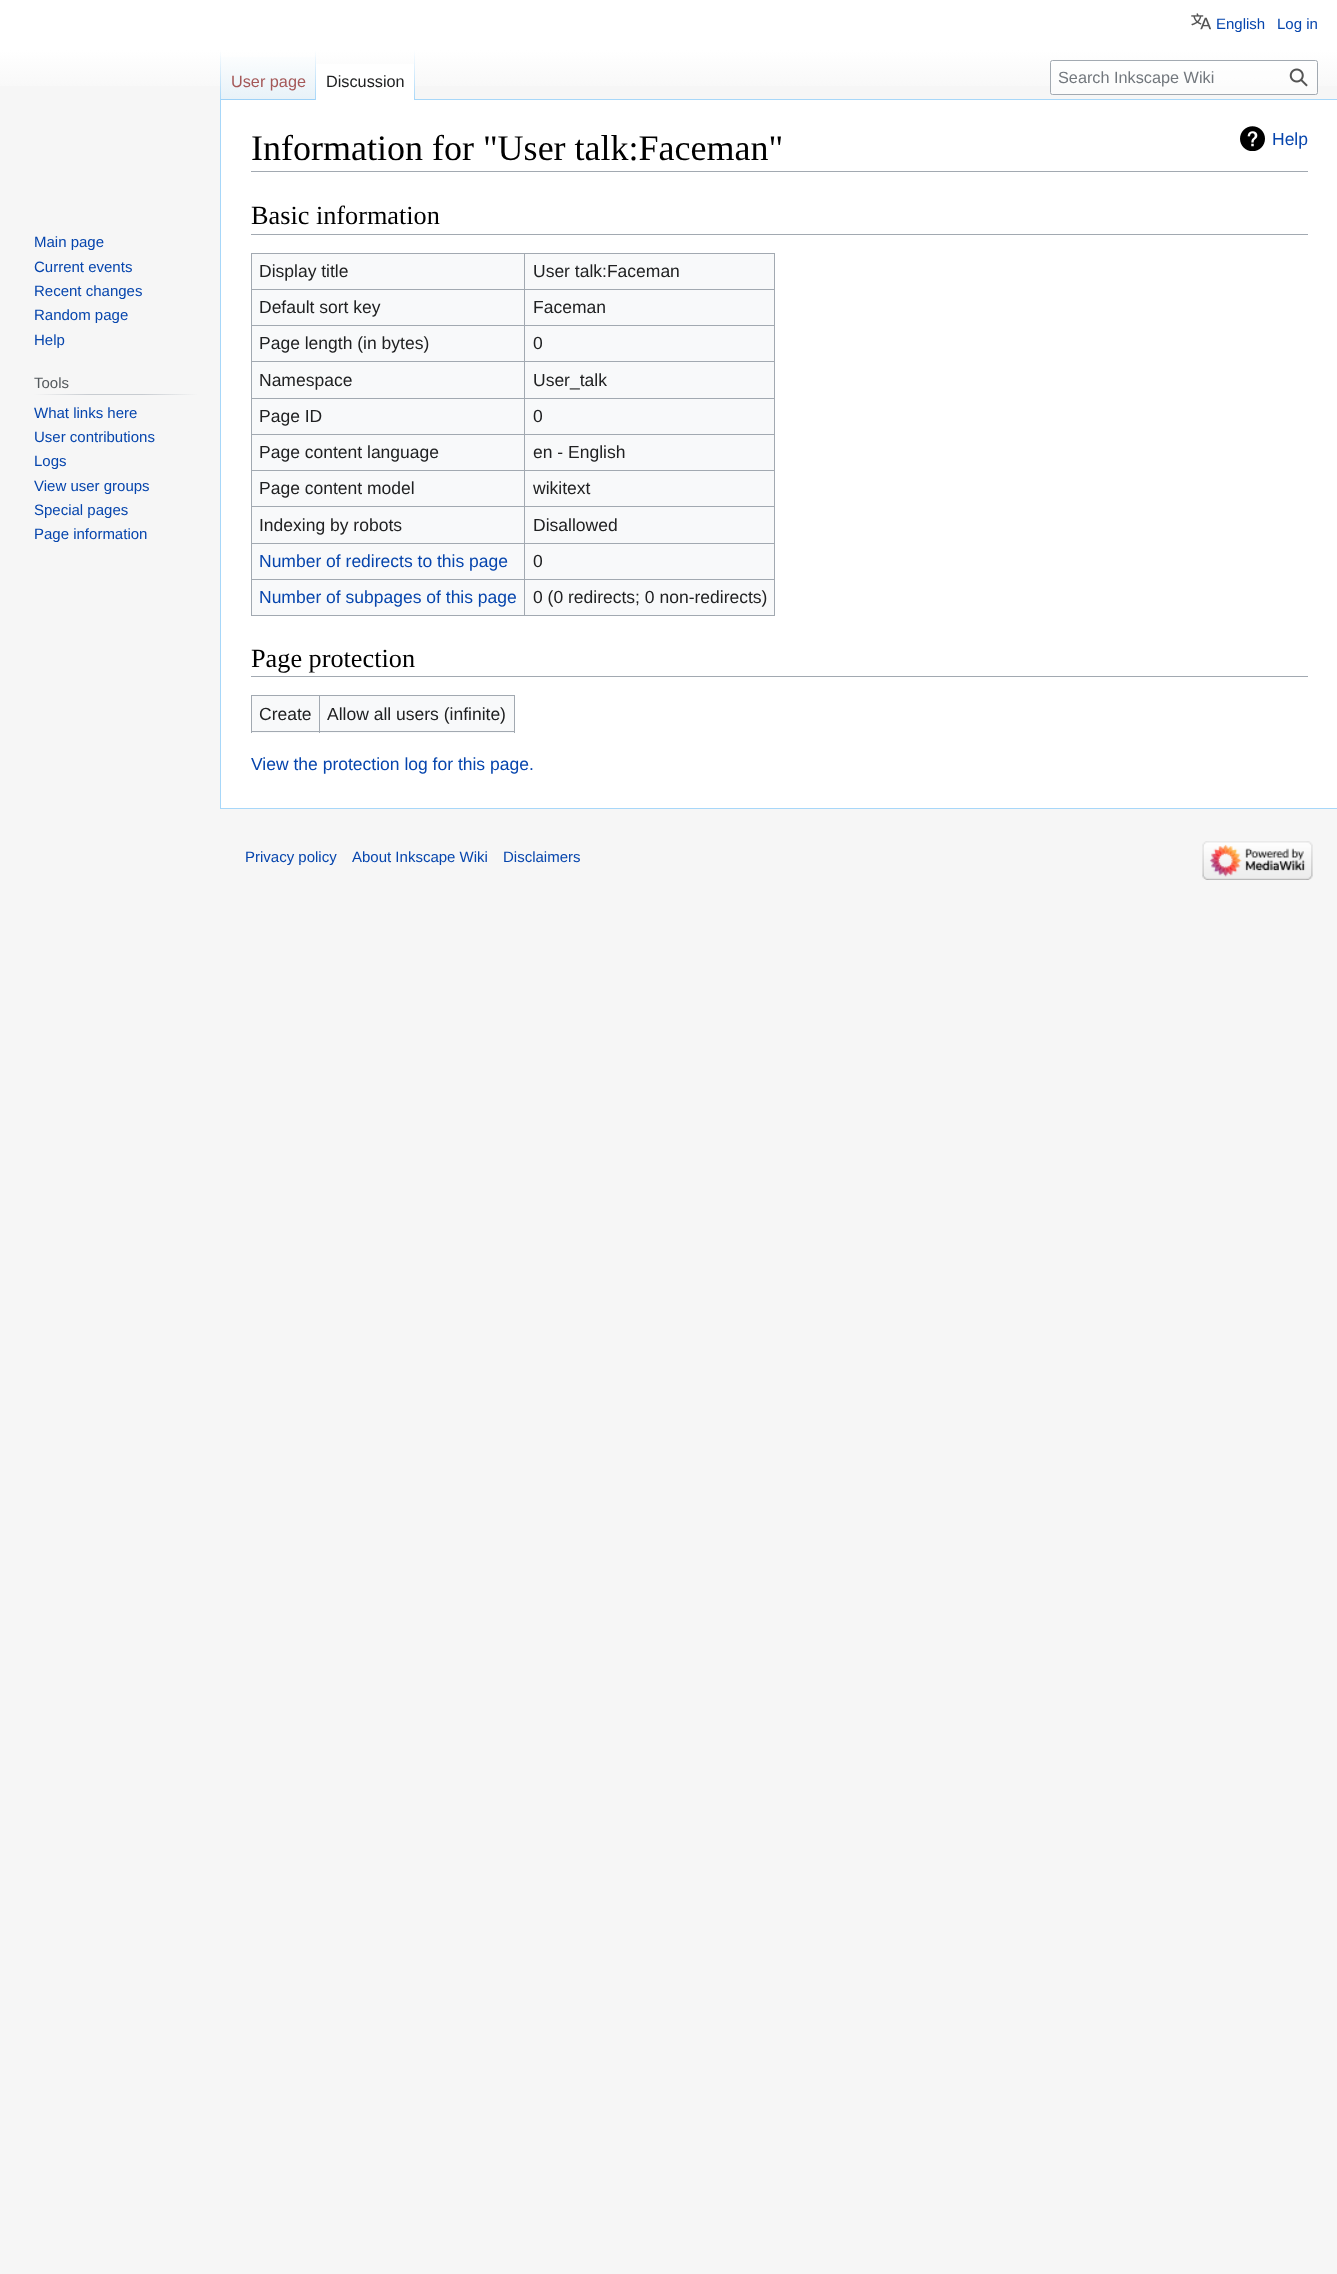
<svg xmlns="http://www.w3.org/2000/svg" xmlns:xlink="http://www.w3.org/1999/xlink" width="1337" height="2274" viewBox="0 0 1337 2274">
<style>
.cls-1{font:15px Liberation Sans;fill:#0645ad}
.cls-2{font:16.25px Liberation Sans;fill:#a55858}
.cls-3{font:16.25px Liberation Sans;fill:#202122}
.cls-4{font:16.25px Liberation Sans;fill:#72777d}
.cls-5{font:15px Liberation Sans;fill:#54595d}
.cls-6{font:36px Liberation Serif;fill:#000000}
.cls-7{font:17.5px Liberation Sans;fill:#0645ad}
.cls-8{font:26.25px Liberation Serif;fill:#000000}
.cls-9{font:17.5px Liberation Sans;fill:#202122}
</style>
<defs>
<linearGradient id="g1" gradientUnits="userSpaceOnUse" x1="669" y1="0" x2="669" y2="100"><stop offset="0.5" stop-color="#ffffff"/><stop offset="1" stop-color="#f6f6f6"/></linearGradient>
<linearGradient id="g2" gradientUnits="userSpaceOnUse" x1="221" y1="50" x2="221" y2="100"><stop offset="0" stop-color="#a7d7f9" stop-opacity="0"/><stop offset="1" stop-color="#a7d7f9"/></linearGradient>
<linearGradient id="g3" gradientUnits="userSpaceOnUse" x1="269" y1="100" x2="269" y2="50"><stop offset="0" stop-color="#77c1f6"/><stop offset="0.03" stop-color="#e8f2f8"/><stop offset="1" stop-color="#ffffff"/></linearGradient>
<linearGradient id="g4" gradientUnits="userSpaceOnUse" x1="316" y1="50" x2="316" y2="100"><stop offset="0" stop-color="#a7d7f9" stop-opacity="0"/><stop offset="1" stop-color="#a7d7f9"/></linearGradient>
<linearGradient id="g5" gradientUnits="userSpaceOnUse" x1="414" y1="50" x2="414" y2="100"><stop offset="0" stop-color="#ffffff"/><stop offset="1" stop-color="#a7d7f9"/></linearGradient>
<linearGradient id="g6" gradientUnits="userSpaceOnUse" x1="34" y1="394" x2="198" y2="394"><stop offset="0" stop-color="#f6f6f6"/><stop offset="0.33" stop-color="#c8ccd1"/><stop offset="0.66" stop-color="#c8ccd1"/><stop offset="1" stop-color="#f6f6f6"/></linearGradient>
</defs>
<rect width="100%" height="100%" fill="#f6f6f6"/>
<rect fill="url(#g1)" x="0" y="0" width="1337" height="86"/>
<image xlink:href="image0.png" x="1191" y="13" width="20" height="17"/>
<rect fill="#a7d7f9" x="220" y="808" width="1117" height="1"/>
<rect fill="#a7d7f9" x="220" y="99" width="1" height="710"/>
<rect fill="url(#g2)" x="220" y="50" width="1" height="50"/>
<rect fill="url(#g3)" x="221" y="57" width="95" height="43"/>
<rect fill="url(#g4)" x="315" y="50" width="1" height="50"/>
<rect fill="#ffffff" x="316" y="64" width="98" height="36"/>
<rect fill="url(#g5)" x="414" y="50" width="1" height="50"/>
<rect fill="#ffffff" fill-opacity="0.5" stroke="#a2a9b1" x="1050.5" y="60.5" width="267" height="34" rx="2"/>
<image xlink:href="image1.png" x="1289" y="68" width="19" height="19"/>
<rect fill="url(#g6)" x="34" y="394" width="164" height="1"/>
<rect fill="#ffffff" x="221" y="100" width="1116" height="708"/>
<rect fill="#a7d7f9" x="415" y="99" width="922" height="1"/>
<rect fill="#a2a9b1" x="251" y="171" width="1057" height="1"/>
<image xlink:href="image2.png" x="1240" y="126" width="25" height="25"/>
<rect fill="#a2a9b1" x="251" y="234" width="1057" height="1"/>
<rect fill="#f8f9fa" x="252" y="254" width="522" height="361"/>
<rect fill="#a2a9b1" x="251" y="253" width="524" height="1"/>
<rect fill="#a2a9b1" x="774" y="253" width="1" height="363"/>
<rect fill="#a2a9b1" x="251" y="615" width="524" height="1"/>
<rect fill="#a2a9b1" x="251" y="253" width="1" height="363"/>
<rect fill="#a2a9b1" x="524" y="289" width="251" height="1"/>
<rect fill="#a2a9b1" x="524" y="325" width="251" height="1"/>
<rect fill="#a2a9b1" x="524" y="361" width="251" height="1"/>
<rect fill="#a2a9b1" x="524" y="398" width="251" height="1"/>
<rect fill="#a2a9b1" x="524" y="434" width="251" height="1"/>
<rect fill="#a2a9b1" x="524" y="470" width="251" height="1"/>
<rect fill="#a2a9b1" x="524" y="506" width="251" height="1"/>
<rect fill="#a2a9b1" x="524" y="543" width="251" height="1"/>
<rect fill="#a2a9b1" x="524" y="579" width="251" height="1"/>
<rect fill="#a2a9b1" x="524" y="579" width="1" height="37"/>
<rect fill="#a2a9b1" x="251" y="579" width="274" height="1"/>
<rect fill="#a2a9b1" x="524" y="543" width="1" height="37"/>
<rect fill="#a2a9b1" x="251" y="543" width="274" height="1"/>
<rect fill="#a2a9b1" x="524" y="506" width="1" height="38"/>
<rect fill="#a2a9b1" x="251" y="506" width="274" height="1"/>
<rect fill="#a2a9b1" x="524" y="470" width="1" height="38"/>
<rect fill="#a2a9b1" x="251" y="470" width="274" height="1"/>
<rect fill="#a2a9b1" x="524" y="434" width="1" height="37"/>
<rect fill="#a2a9b1" x="251" y="434" width="274" height="1"/>
<rect fill="#a2a9b1" x="524" y="398" width="1" height="37"/>
<rect fill="#a2a9b1" x="251" y="398" width="274" height="1"/>
<rect fill="#a2a9b1" x="524" y="361" width="1" height="38"/>
<rect fill="#a2a9b1" x="251" y="361" width="274" height="1"/>
<rect fill="#a2a9b1" x="524" y="325" width="1" height="38"/>
<rect fill="#a2a9b1" x="251" y="325" width="274" height="1"/>
<rect fill="#a2a9b1" x="524" y="289" width="1" height="37"/>
<rect fill="#a2a9b1" x="251" y="289" width="274" height="1"/>
<rect fill="#a2a9b1" x="524" y="253" width="1" height="37"/>
<rect fill="#a2a9b1" x="251" y="676" width="1057" height="1"/>
<rect fill="#f8f9fa" x="252" y="696" width="262" height="37"/>
<rect fill="#a2a9b1" x="251" y="695" width="264" height="1"/>
<rect fill="#a2a9b1" x="514" y="695" width="1" height="38"/>
<rect fill="#a2a9b1" x="251" y="731" width="264" height="1"/>
<rect fill="#a2a9b1" x="251" y="695" width="1" height="38"/>
<rect fill="#a2a9b1" x="319" y="695" width="1" height="38"/>
<image xlink:href="image3.png" x="1202" y="841" width="111" height="39"/>
<text class="cls-1" x="1216" y="29">English</text>
<text class="cls-1" x="1277" y="29">Log in</text>
<text class="cls-2" x="231" y="87">User page</text>
<text class="cls-3" x="326" y="87">Discussion</text>
<text class="cls-4" x="1058" y="83">Search Inkscape Wiki</text>
<text class="cls-1"><tspan x="34" y="247">Main page</tspan><tspan x="34" y="272">Current events</tspan><tspan x="34" y="296">Recent changes</tspan><tspan x="34" y="320">Random page</tspan><tspan x="34" y="345">Help</tspan></text>
<text class="cls-5" x="34" y="388">Tools</text>
<text class="cls-1"><tspan x="34" y="418">What links here</tspan><tspan x="34" y="442">User contributions</tspan><tspan x="34" y="466">Logs</tspan><tspan x="34" y="491">View user groups</tspan><tspan x="34" y="515">Special pages</tspan><tspan x="34" y="539">Page information</tspan></text>
<text class="cls-6" x="251" y="160">Information for "User talk:Faceman"</text>
<text class="cls-7" x="1272" y="145">Help</text>
<text class="cls-8" x="251" y="224">Basic information</text>
<text class="cls-9" x="259" y="277">Display title</text>
<text class="cls-9" x="533" y="277">User talk:Faceman</text>
<text class="cls-9" x="259" y="313">Default sort key</text>
<text class="cls-9" x="533" y="313">Faceman</text>
<text class="cls-9" x="259" y="349">Page length (in bytes)</text>
<text class="cls-9" x="533" y="349">0</text>
<text class="cls-9" x="259" y="386">Namespace</text>
<text class="cls-9" x="533" y="386">User_talk</text>
<text class="cls-9" x="259" y="422">Page ID</text>
<text class="cls-9" x="533" y="422">0</text>
<text class="cls-9" x="259" y="458">Page content language</text>
<text class="cls-9" x="533" y="458">en - English</text>
<text class="cls-9" x="259" y="494">Page content model</text>
<text class="cls-9" x="533" y="494">wikitext</text>
<text class="cls-9" x="259" y="531">Indexing by robots</text>
<text class="cls-9" x="533" y="531">Disallowed</text>
<text class="cls-7" x="259" y="567">Number of redirects to this page</text>
<text class="cls-9" x="533" y="567">0</text>
<text class="cls-7" x="259" y="603">Number of subpages of this page</text>
<text class="cls-9" x="533" y="603">0 (0 redirects; 0 non-redirects)</text>
<text class="cls-8" x="251" y="667">Page protection</text>
<text class="cls-9" x="259" y="720">Create</text>
<text class="cls-9" x="327" y="720">Allow all users (infinite)</text>
<text class="cls-7" x="251" y="770">View the protection log for this page.</text>
<text class="cls-1" x="245" y="862">Privacy policy</text>
<text class="cls-1" x="352" y="862">About Inkscape Wiki</text>
<text class="cls-1" x="503" y="862">Disclaimers</text>
</svg>
